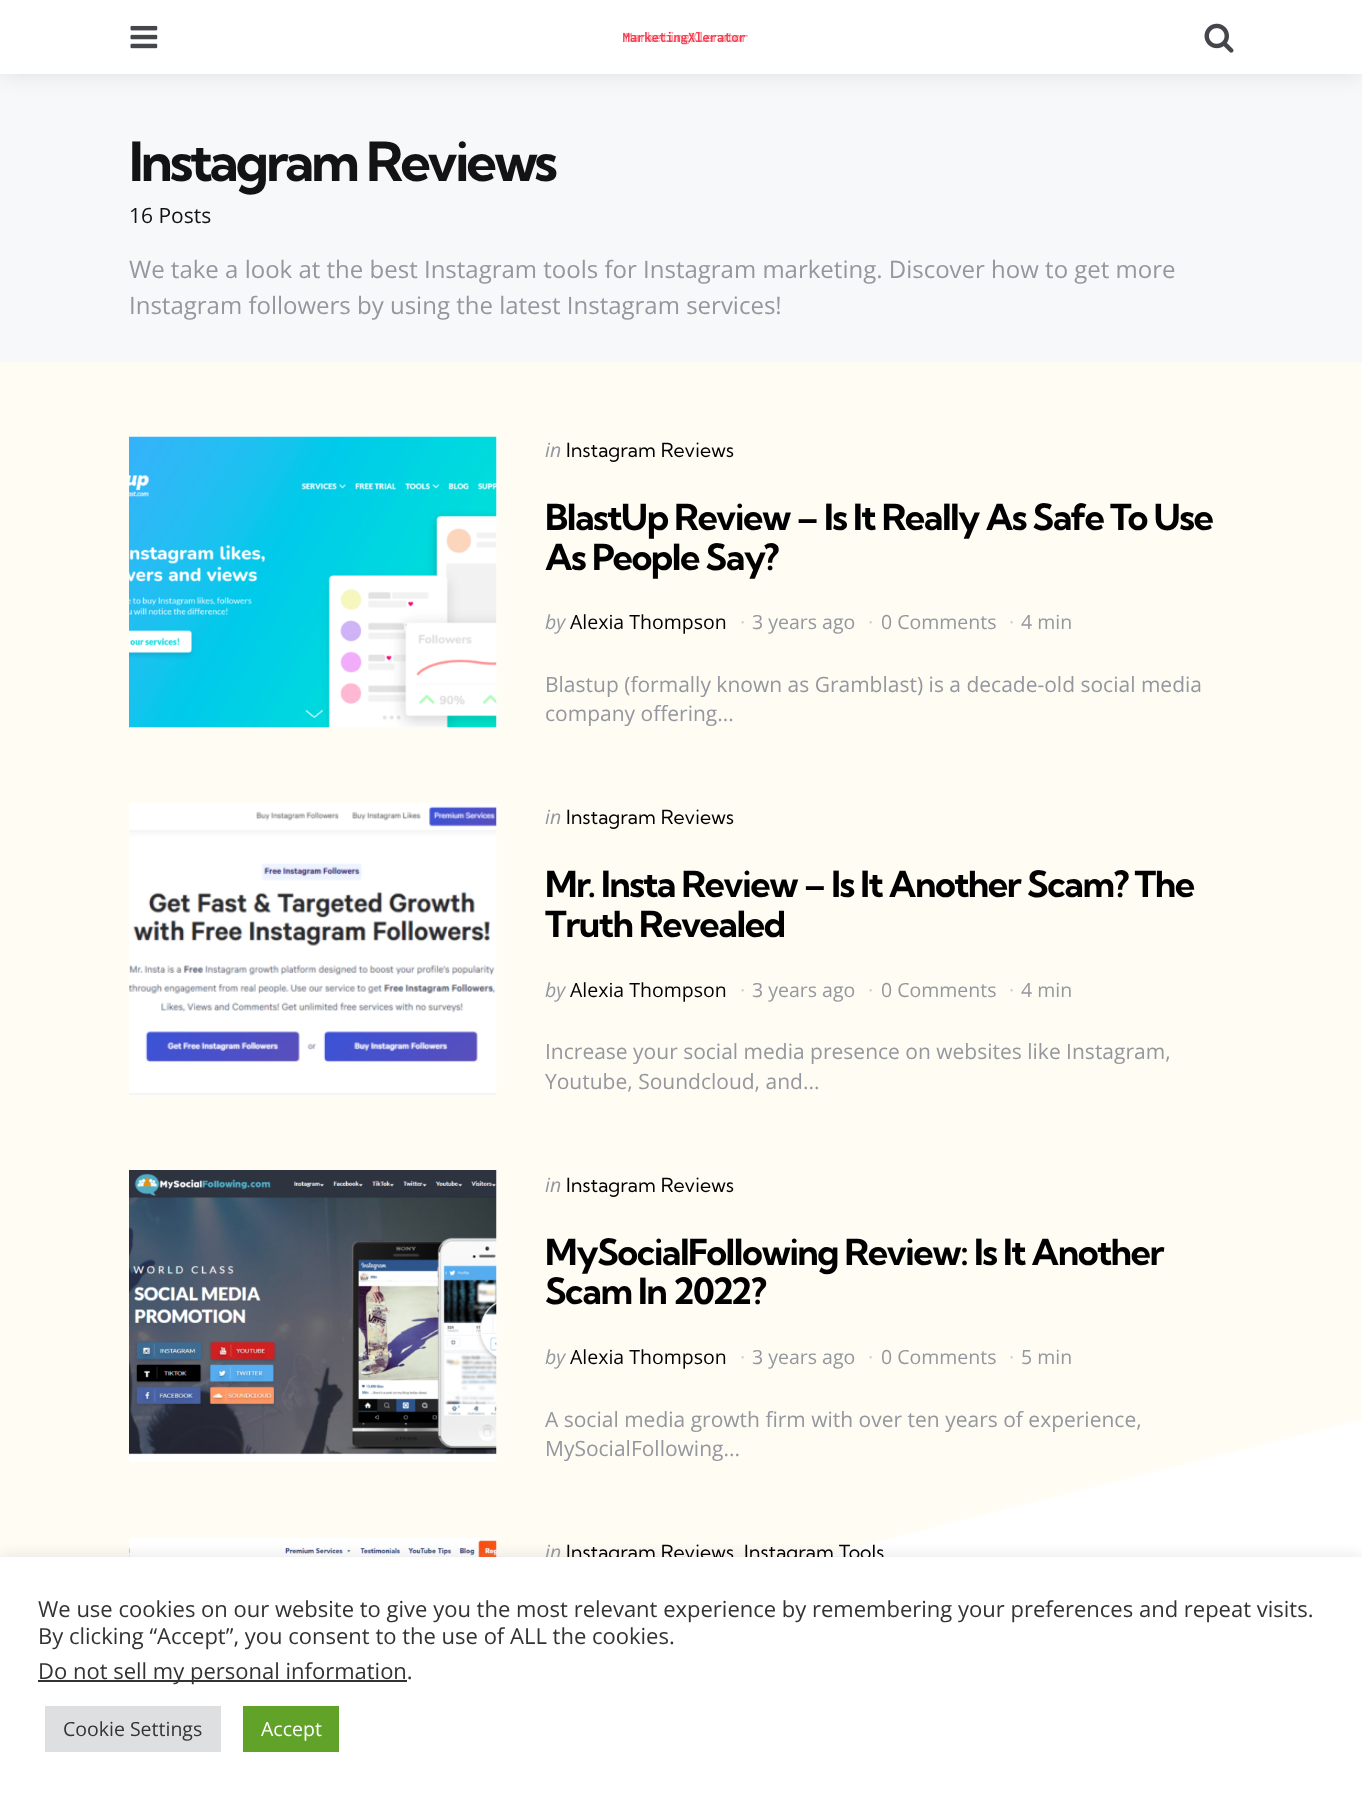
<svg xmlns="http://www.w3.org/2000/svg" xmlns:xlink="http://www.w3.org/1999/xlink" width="1362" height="1797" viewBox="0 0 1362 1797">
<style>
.cls-1{font:bold 54px Kumbh Sans;letter-spacing:-3px;fill:#131315}
.cls-2{font:21px Open Sans;fill:#131315}
.cls-3{font:24px Open Sans;fill:#94979e}
.cls-4{font:italic 19.5px Open Sans;fill:#94979e}
.cls-5{font:19.5px Kumbh Sans;fill:#000000}
.cls-6{font:bold 36px Kumbh Sans;letter-spacing:-1.5px;fill:#000000}
.cls-7{font:19.5px Open Sans;fill:#000000}
.cls-8{font:19.5px Open Sans;fill:#cfd0d2}
.cls-9{font:19.5px Open Sans;fill:#94979e}
.cls-10{font:21px Open Sans;fill:#94979e}
.cls-11{font:22px Open Sans;fill:#333333}
.cls-12{font:19.5px Open Sans;fill:#333333}
.cls-13{font:19.5px Open Sans;fill:#ffffff}
</style>
<rect width="100%" height="100%" fill="#ffffff"/>
<image xlink:href="image0.png" x="0" y="362" width="1362" height="1195"/>
<rect fill="#f7f8fa" x="0" y="74" width="1362" height="288"/>
<rect fill="#000000" fill-opacity="0.1" filter="blur(11px)" x="0" y="0" width="1362" height="74"/>
<rect fill="#ffffff" x="0" y="0" width="1362" height="74"/>
<image xlink:href="image1.png" x="130" y="25" width="28" height="24"/>
<image xlink:href="image2.png" x="623" y="31" width="125" height="14"/>
<image xlink:href="image3.png" x="1204" y="23" width="30" height="30"/>
<image xlink:href="image4.png" x="129" y="436" width="368" height="292"/>
<image xlink:href="image5.png" x="129" y="803" width="368" height="292"/>
<image xlink:href="image6.png" x="129" y="1170" width="368" height="292"/>
<image xlink:href="image7.png" x="129" y="1538" width="368" height="19"/>
<rect fill="#acabab" fill-opacity="0.3" filter="blur(7.5px)" x="0" y="1556" width="1362" height="240"/>
<text class="cls-1" x="129" y="181">Instagram Reviews</text>
<text class="cls-2" x="129" y="223">16 Posts</text>
<text class="cls-3"><tspan x="129" y="278">We take a look at the best Instagram tools for Instagram marketing. Discover how to get more</tspan><tspan x="129" y="314">Instagram followers by using the latest Instagram services!</tspan></text>
<text class="cls-4" x="545" y="457">in</text>
<text class="cls-5" x="566" y="457">Instagram Reviews</text>
<text class="cls-6"><tspan x="545" y="530">BlastUp Review – Is It Really As Safe To Use</tspan><tspan x="545" y="570">As People Say?</tspan></text>
<text class="cls-4" x="545" y="629">by</text>
<text class="cls-7" x="570" y="629">Alexia Thompson</text>
<text class="cls-8" x="740" y="629">·</text>
<text class="cls-9" x="752" y="629">3 years ago</text>
<text class="cls-8" x="868" y="629">·</text>
<text class="cls-9" x="881" y="629">0 Comments</text>
<text class="cls-8" x="1009" y="629">·</text>
<text class="cls-9" x="1021" y="629">4 min</text>
<text class="cls-10"><tspan x="545" y="692">Blastup (formally known as Gramblast) is a decade-old social media</tspan><tspan x="545" y="721">company offering...</tspan></text>
<text class="cls-4" x="545" y="824">in</text>
<text class="cls-5" x="566" y="824">Instagram Reviews</text>
<text class="cls-6"><tspan x="545" y="897">Mr. Insta Review – Is It Another Scam? The</tspan><tspan x="545" y="937">Truth Revealed</tspan></text>
<text class="cls-4" x="545" y="997">by</text>
<text class="cls-7" x="570" y="997">Alexia Thompson</text>
<text class="cls-8" x="740" y="997">·</text>
<text class="cls-9" x="752" y="997">3 years ago</text>
<text class="cls-8" x="868" y="997">·</text>
<text class="cls-9" x="881" y="997">0 Comments</text>
<text class="cls-8" x="1009" y="997">·</text>
<text class="cls-9" x="1021" y="997">4 min</text>
<text class="cls-10"><tspan x="545" y="1059">Increase your social media presence on websites like Instagram,</tspan><tspan x="545" y="1089">Youtube, Soundcloud, and...</tspan></text>
<text class="cls-4" x="545" y="1192">in</text>
<text class="cls-5" x="566" y="1192">Instagram Reviews</text>
<text class="cls-6"><tspan x="545" y="1265">MySocialFollowing Review: Is It Another</tspan><tspan x="545" y="1304">Scam In 2022?</tspan></text>
<text class="cls-4" x="545" y="1364">by</text>
<text class="cls-7" x="570" y="1364">Alexia Thompson</text>
<text class="cls-8" x="740" y="1364">·</text>
<text class="cls-9" x="752" y="1364">3 years ago</text>
<text class="cls-8" x="868" y="1364">·</text>
<text class="cls-9" x="881" y="1364">0 Comments</text>
<text class="cls-8" x="1009" y="1364">·</text>
<text class="cls-9" x="1021" y="1364">5 min</text>
<text class="cls-10"><tspan x="545" y="1427">A social media growth firm with over ten years of experience,</tspan><tspan x="545" y="1456">MySocialFollowing...</tspan></text>
<text class="cls-4" x="545" y="1559">in</text>
<text class="cls-5" x="566" y="1559">Instagram Reviews</text>
<text class="cls-5" x="744" y="1559">Instagram Tools</text>
<rect fill="#ffffff" x="0" y="1557" width="1362" height="240"/>
<text class="cls-11"><tspan x="38" y="1617">We use cookies on our website to give you the most relevant experience by remembering your preferences and repeat visits.</tspan><tspan x="38" y="1644">By clicking “Accept”, you consent to the use of ALL the cookies.</tspan></text>
<rect fill="#333333" x="38" y="1680" width="369" height="2"/>
<text class="cls-11" x="38" y="1679">Do not sell my personal information.</text>
<rect fill="#dedfe0" x="45" y="1706" width="176" height="46"/>
<text class="cls-12" x="63" y="1736">Cookie Settings</text>
<rect fill="#61a229" x="243" y="1706" width="96" height="46"/>
<text class="cls-13" x="261" y="1736">Accept</text>
</svg>
